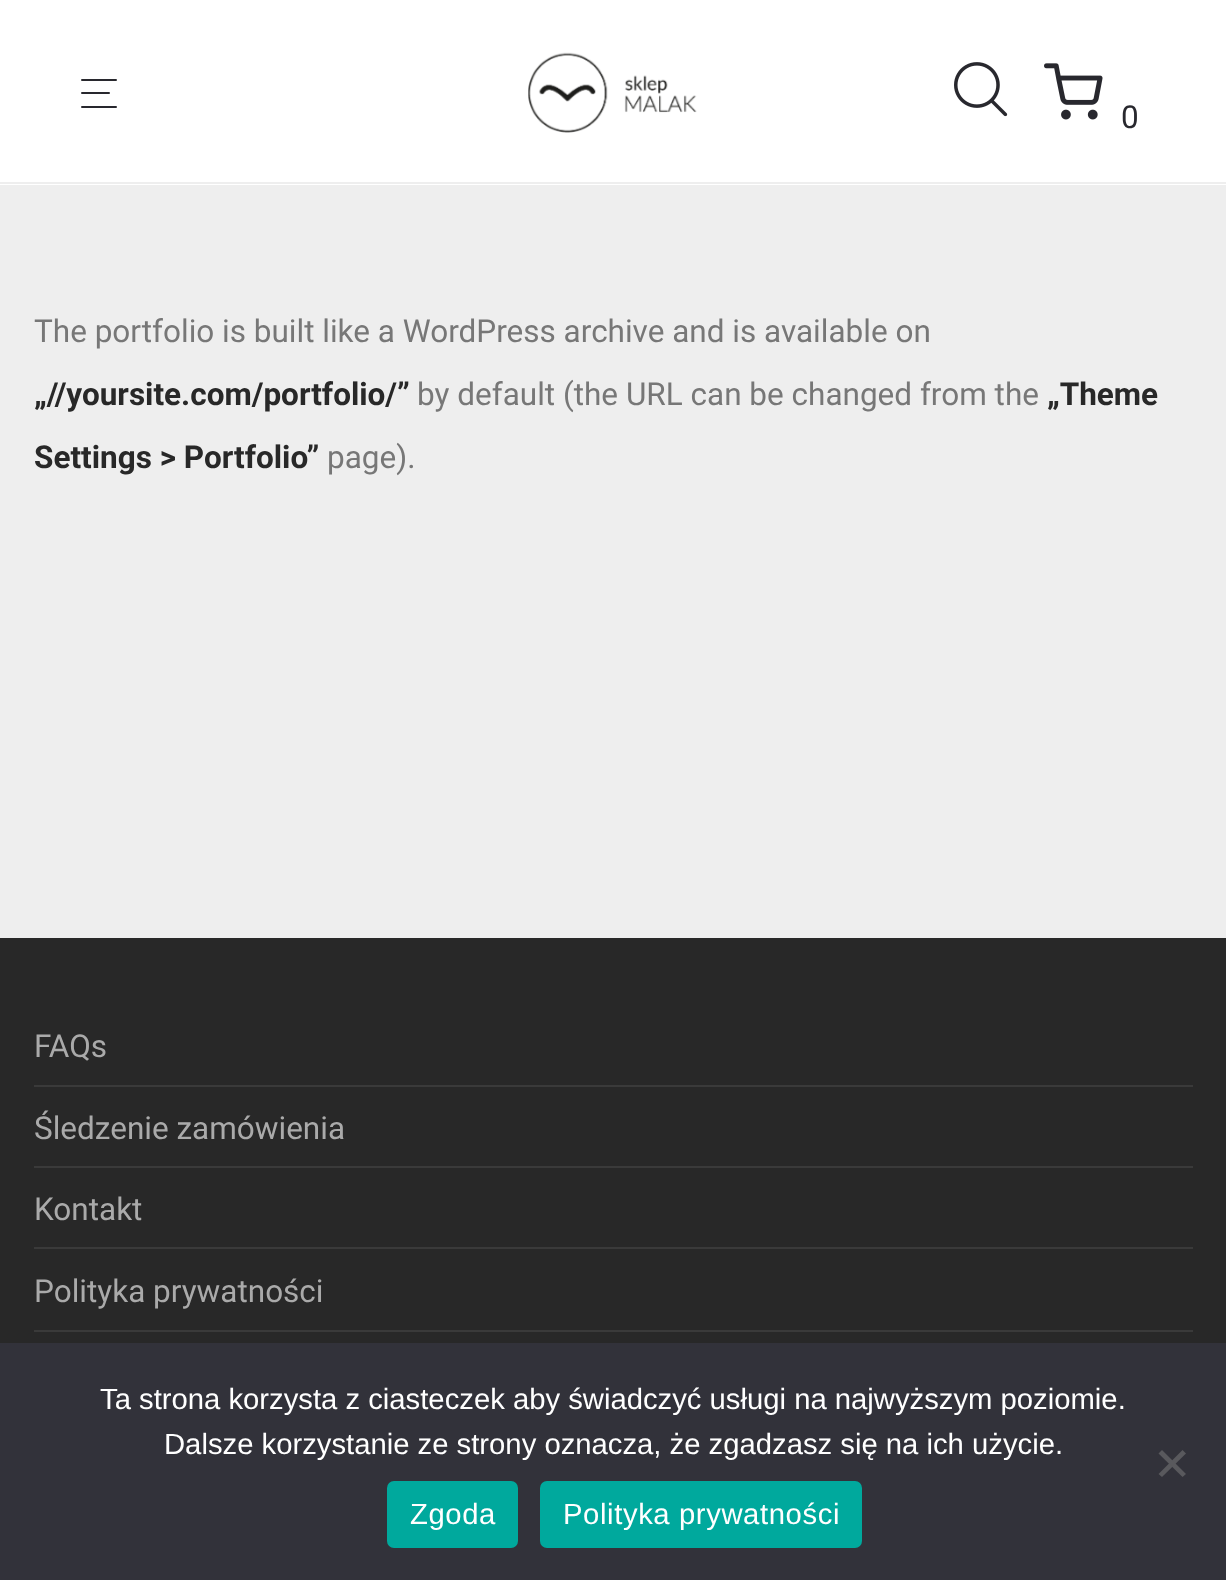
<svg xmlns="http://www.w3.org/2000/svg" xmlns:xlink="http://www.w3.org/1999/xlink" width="1226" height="1580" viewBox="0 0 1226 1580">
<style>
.cls-1{font:31.5px Roboto;fill:#28282e}
.cls-2{font:31.5px Roboto;fill:#777777}
.cls-3{font:bold 31.5px Roboto;fill:#282828}
.cls-4{font:31.5px Roboto;fill:#aaaaaa}
.cls-5{font:29.25px Liberation Sans;fill:#ffffff}
.cls-6{font:29.25px Liberation Sans;letter-spacing:0.6px;fill:#ffffff}
</style>
<rect width="100%" height="100%" fill="#eeeeee"/>
<rect fill="#ffffff" x="0" y="0" width="1226" height="185"/>
<rect fill="#eeeeee" x="0" y="182" width="1226" height="2"/>
<rect fill="#28282e" x="81" y="79" width="36" height="2" rx="1"/>
<rect fill="#28282e" x="81" y="92" width="29" height="2" rx="1"/>
<rect fill="#28282e" x="81" y="106" width="36" height="2" rx="1"/>
<image xlink:href="image0.png" x="528" y="52" width="169" height="81"/>
<image xlink:href="image1.png" x="954" y="62" width="54" height="55"/>
<image xlink:href="image2.png" x="1044" y="63" width="59" height="57"/>
<rect fill="#282828" x="0" y="938" width="1226" height="405"/>
<rect fill="#3a3a3a" x="34" y="1085" width="1159" height="2"/>
<rect fill="#3a3a3a" x="34" y="1166" width="1159" height="2"/>
<rect fill="#3a3a3a" x="34" y="1247" width="1159" height="2"/>
<rect fill="#3a3a3a" x="34" y="1330" width="1159" height="2"/>
<rect fill="#32323a" x="0" y="1343" width="1226" height="237"/>
<path fill="#59595d" d="M1182.5 1450L1186 1453.5L1162 1477L1158.5 1474Z"/>
<path fill="#59595d" d="M1158.5 1453.5L1162 1450L1186 1474L1182.5 1477Z"/>
<rect fill="#00a99d" x="387" y="1481" width="131" height="67" rx="7"/>
<rect fill="#00a99d" x="540" y="1481" width="322" height="67" rx="7"/>
<text class="cls-1" x="1121" y="128">0</text>
<text class="cls-2" x="34" y="342">The portfolio is built like a WordPress archive and is available on</text>
<text class="cls-3" x="34" y="405">„//yoursite.com/portfolio/”</text>
<text class="cls-2" x="417" y="405">by default (the URL can be changed from the</text>
<text class="cls-3" x="1047" y="405">„Theme</text>
<text class="cls-3" x="34" y="468">Settings &gt; Portfolio”</text>
<text class="cls-2" x="327" y="468">page).</text>
<text class="cls-4" x="34" y="1057">FAQs</text>
<text class="cls-4" x="34" y="1139">Śledzenie zamówienia</text>
<text class="cls-4" x="34" y="1220">Kontakt</text>
<text class="cls-4" x="34" y="1302">Polityka prywatności</text>
<text class="cls-5" x="100" y="1409">Ta strona korzysta z ciasteczek aby świadczyć usługi na najwyższym poziomie.</text>
<text class="cls-5" x="164" y="1454">Dalsze korzystanie ze strony oznacza, że zgadzasz się na ich użycie.</text>
<text class="cls-6" x="410" y="1524">Zgoda</text>
<text class="cls-6" x="563" y="1524">Polityka prywatności</text>
</svg>
